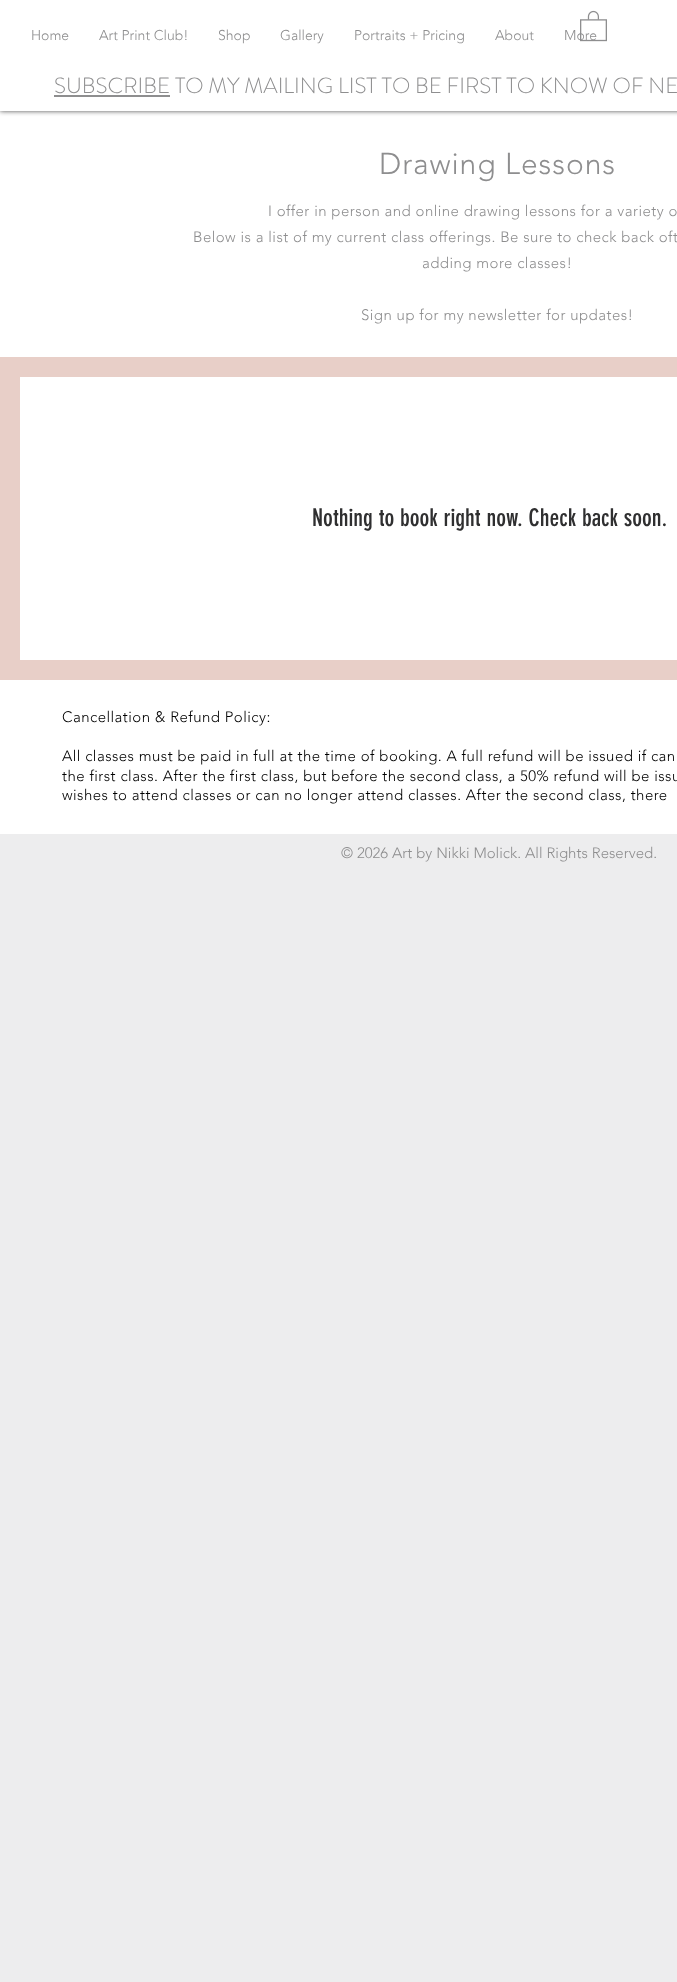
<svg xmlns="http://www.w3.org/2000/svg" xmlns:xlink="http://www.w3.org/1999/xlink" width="677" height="1982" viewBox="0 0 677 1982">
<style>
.cls-1{font:300 14px 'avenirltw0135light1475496';fill:#8e8e8f}
.cls-2{font:300 22px 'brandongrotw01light';fill:#8e8e8f}
.cls-3{font:300 30px 'avenirltw0135light1475496';letter-spacing:0.9px;fill:#8e8e8f}
.cls-4{font:300 15px 'avenirltw0135light1475496';letter-spacing:0.45px;fill:#8e8e8f}
.cls-5{font:24px 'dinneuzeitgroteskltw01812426';fill:#2f2f30}
.cls-6{font:300 15px 'avenirltw0135light1475496';letter-spacing:0.45px;fill:#000000}
.cls-7{font:300 15px 'avenirltw0135light1475496';fill:#8e8e8f}
</style>
<rect width="100%" height="100%" fill="#ededee"/>
<rect fill="#ffffff" x="0" y="111" width="677" height="723"/>
<rect fill="#000000" fill-opacity="0.7" filter="blur(2.5px)" x="0" y="0" width="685" height="111"/>
<rect fill="#ffffff" x="0" y="0" width="677" height="111"/>
<image xlink:href="image0.png" x="580" y="10" width="27" height="32"/>
<rect fill="#8e8e8f" x="54" y="95" width="116" height="2"/>
<rect fill="#e8cfc8" x="0" y="357" width="677" height="323"/>
<rect fill="none" stroke="#ffffff" stroke-width="5" x="22.5" y="379.5" width="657" height="278"/>
<rect fill="#ffffff" x="25" y="382" width="652" height="273"/>
<text class="cls-1" x="31" y="40">Home</text>
<text class="cls-1" x="99" y="40">Art Print Club!</text>
<text class="cls-1" x="218" y="40">Shop</text>
<text class="cls-1" x="280" y="40">Gallery</text>
<text class="cls-1" x="354" y="40">Portraits + Pricing</text>
<text class="cls-1" x="495" y="40">About</text>
<text class="cls-1" x="564" y="40">More</text>
<text class="cls-2" x="54" y="93">SUBSCRIBE TO MY MAILING LIST TO BE FIRST TO KNOW OF NE</text>
<text class="cls-3" x="379" y="174">Drawing Lessons</text>
<text class="cls-4" x="268" y="216">I offer in person and online drawing lessons for a variety o</text>
<text class="cls-4" x="193" y="242">Below is a list of my current class offerings. Be sure to check back oft</text>
<text class="cls-4" x="422" y="268">adding more classes!</text>
<text class="cls-4" x="361" y="320">Sign up for my newsletter for updates!</text>
<text class="cls-5" x="312" y="526">Nothing to book right now. Check back soon.</text>
<text class="cls-6" x="62" y="722">Cancellation &amp; Refund Policy:</text>
<text class="cls-6"><tspan x="62" y="761">All classes must be paid in full at the time of booking. A full refund will be issued if can</tspan><tspan x="62" y="781">the first class. After the first class, but before the second class, a 50% refund will be issu</tspan><tspan x="62" y="800">wishes to attend classes or can no longer attend classes. After the second class, there</tspan></text>
<text class="cls-7" x="341" y="858">© 2026 Art by Nikki Molick. All Rights Reserved.</text>
</svg>
